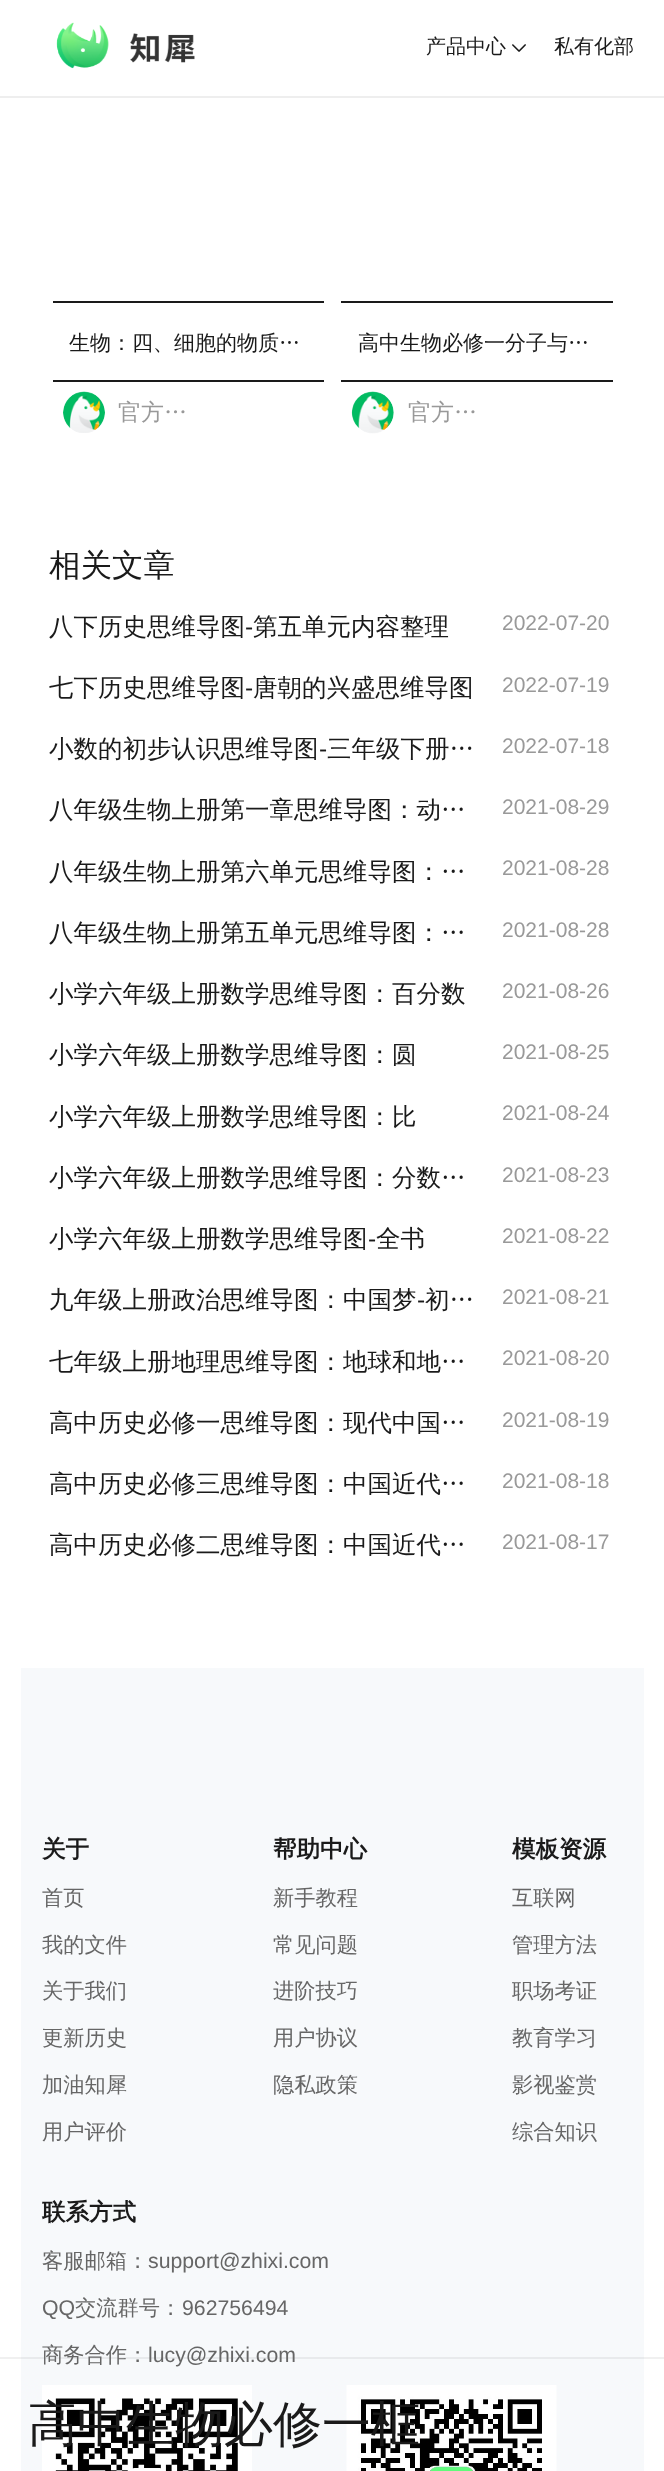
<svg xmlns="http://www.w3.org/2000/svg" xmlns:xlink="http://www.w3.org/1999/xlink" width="664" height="2471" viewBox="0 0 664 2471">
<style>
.cls-1{font:500 20px WenQuanYi Zen Hei;fill:#1a1a1a}
.cls-2{font:500 21px WenQuanYi Zen Hei;fill:#1a1a1a}
.cls-3{font:500 23px WenQuanYi Zen Hei;fill:#999999}
.cls-4{font:500 31.5px WenQuanYi Zen Hei;fill:#1a1a1a}
.cls-5{font:500 24.5px WenQuanYi Zen Hei;fill:#1a1a1a}
.cls-6{font:24.5px Liberation Sans;fill:#1a1a1a}
.cls-7{font:21px Liberation Sans;fill:#999999}
.cls-8{font:bold 23.5px WenQuanYi Zen Hei;fill:#1a1a1a}
.cls-9{font:500 21.25px WenQuanYi Zen Hei;fill:#666666}
.cls-10{font:21.25px Liberation Sans;fill:#666666}
.cls-11{font:500 49px WenQuanYi Zen Hei;fill:#1a1a1a}
</style>
<rect width="100%" height="100%" fill="#ffffff"/>
<rect fill="#eeeeee" x="0" y="96" width="664" height="2"/>
<image xlink:href="image0.png" x="56" y="22" width="139" height="47"/>
<image xlink:href="image1.png" x="512" y="44" width="14" height="8"/>
<rect fill="#1a1a1a" x="53" y="301" width="271" height="2"/>
<rect fill="#1a1a1a" x="53" y="380" width="271" height="2"/>
<image xlink:href="image2.png" x="63" y="391" width="42" height="42"/>
<rect fill="#1a1a1a" x="341" y="301" width="272" height="2"/>
<rect fill="#1a1a1a" x="341" y="380" width="272" height="2"/>
<image xlink:href="image3.png" x="351" y="391" width="43" height="43"/>
<rect fill="#f7f9fb" x="21" y="1668" width="623" height="803"/>
<image xlink:href="image4.png" x="42" y="2385" width="210" height="86"/>
<image xlink:href="image5.png" x="346" y="2385" width="211" height="86"/>
<rect fill="#000000" fill-opacity="0.06" x="0" y="2357" width="664" height="2"/>
<text class="cls-1" x="426" y="53">产品中心</text>
<text class="cls-1" x="554" y="53">私有化部</text>
<text class="cls-2" x="69" y="350">生物：四、细胞的物质…</text>
<text class="cls-3" x="118" y="420">官方…</text>
<text class="cls-2" x="358" y="350">高中生物必修一分子与…</text>
<text class="cls-3" x="408" y="420">官方…</text>
<text class="cls-4" x="49" y="576">相关文章</text>
<text class="cls-5" x="49" y="635">八下历史思维导图</text>
<text class="cls-6" x="245" y="635">-</text>
<text class="cls-5" x="253" y="635">第五单元内容整理</text>
<text class="cls-7" x="502" y="630">2022-07-20</text>
<text class="cls-5" x="49" y="696">七下历史思维导图</text>
<text class="cls-6" x="245" y="696">-</text>
<text class="cls-5" x="253" y="696">唐朝的兴盛思维导图</text>
<text class="cls-7" x="502" y="692">2022-07-19</text>
<text class="cls-5" x="49" y="757">小数的初步认识思维导图</text>
<text class="cls-6" x="319" y="757">-</text>
<text class="cls-5" x="327" y="757">三年级下册…</text>
<text class="cls-7" x="502" y="753">2022-07-18</text>
<text class="cls-5" x="49" y="818">八年级生物上册第一章思维导图：动…</text>
<text class="cls-7" x="502" y="814">2021-08-29</text>
<text class="cls-5" x="49" y="880">八年级生物上册第六单元思维导图：…</text>
<text class="cls-7" x="502" y="875">2021-08-28</text>
<text class="cls-5" x="49" y="941">八年级生物上册第五单元思维导图：…</text>
<text class="cls-7" x="502" y="937">2021-08-28</text>
<text class="cls-5" x="49" y="1002">小学六年级上册数学思维导图：百分数</text>
<text class="cls-7" x="502" y="998">2021-08-26</text>
<text class="cls-5" x="49" y="1063">小学六年级上册数学思维导图：圆</text>
<text class="cls-7" x="502" y="1059">2021-08-25</text>
<text class="cls-5" x="49" y="1125">小学六年级上册数学思维导图：比</text>
<text class="cls-7" x="502" y="1120">2021-08-24</text>
<text class="cls-5" x="49" y="1186">小学六年级上册数学思维导图：分数…</text>
<text class="cls-7" x="502" y="1182">2021-08-23</text>
<text class="cls-5" x="49" y="1247">小学六年级上册数学思维导图</text>
<text class="cls-6" x="368" y="1247">-</text>
<text class="cls-5" x="376" y="1247">全书</text>
<text class="cls-7" x="502" y="1243">2021-08-22</text>
<text class="cls-5" x="49" y="1308">九年级上册政治思维导图：中国梦</text>
<text class="cls-6" x="417" y="1308">-</text>
<text class="cls-5" x="425" y="1308">初…</text>
<text class="cls-7" x="502" y="1304">2021-08-21</text>
<text class="cls-5" x="49" y="1370">七年级上册地理思维导图：地球和地…</text>
<text class="cls-7" x="502" y="1365">2021-08-20</text>
<text class="cls-5" x="49" y="1431">高中历史必修一思维导图：现代中国…</text>
<text class="cls-7" x="502" y="1427">2021-08-19</text>
<text class="cls-5" x="49" y="1492">高中历史必修三思维导图：中国近代…</text>
<text class="cls-7" x="502" y="1488">2021-08-18</text>
<text class="cls-5" x="49" y="1553">高中历史必修二思维导图：中国近代…</text>
<text class="cls-7" x="502" y="1549">2021-08-17</text>
<text class="cls-8" x="42" y="1857">关于</text>
<text class="cls-9" x="42" y="1905">首页</text>
<text class="cls-9" x="42" y="1952">我的文件</text>
<text class="cls-9" x="42" y="1998">关于我们</text>
<text class="cls-9" x="42" y="2045">更新历史</text>
<text class="cls-9" x="42" y="2092">加油知犀</text>
<text class="cls-9" x="42" y="2139">用户评价</text>
<text class="cls-8" x="273" y="1857">帮助中心</text>
<text class="cls-9" x="273" y="1905">新手教程</text>
<text class="cls-9" x="273" y="1952">常见问题</text>
<text class="cls-9" x="273" y="1998">进阶技巧</text>
<text class="cls-9" x="273" y="2045">用户协议</text>
<text class="cls-9" x="273" y="2092">隐私政策</text>
<text class="cls-8" x="512" y="1857">模板资源</text>
<text class="cls-9" x="512" y="1905">互联网</text>
<text class="cls-9" x="512" y="1952">管理方法</text>
<text class="cls-9" x="512" y="1998">职场考证</text>
<text class="cls-9" x="512" y="2045">教育学习</text>
<text class="cls-9" x="512" y="2092">影视鉴赏</text>
<text class="cls-9" x="512" y="2139">综合知识</text>
<text class="cls-8" x="42" y="2220">联系方式</text>
<text class="cls-9" x="42" y="2268">客服邮箱：</text>
<text class="cls-10" x="148" y="2268">support@zhixi.com</text>
<text class="cls-10" x="42" y="2315">QQ</text>
<text class="cls-9" x="75" y="2315">交流群号：</text>
<text class="cls-10" x="182" y="2315">962756494</text>
<text class="cls-9" x="42" y="2362">商务合作：</text>
<text class="cls-10" x="148" y="2362">lucy@zhixi.com</text>
<text class="cls-11" x="28" y="2441">高中生物必修一框</text>
</svg>
